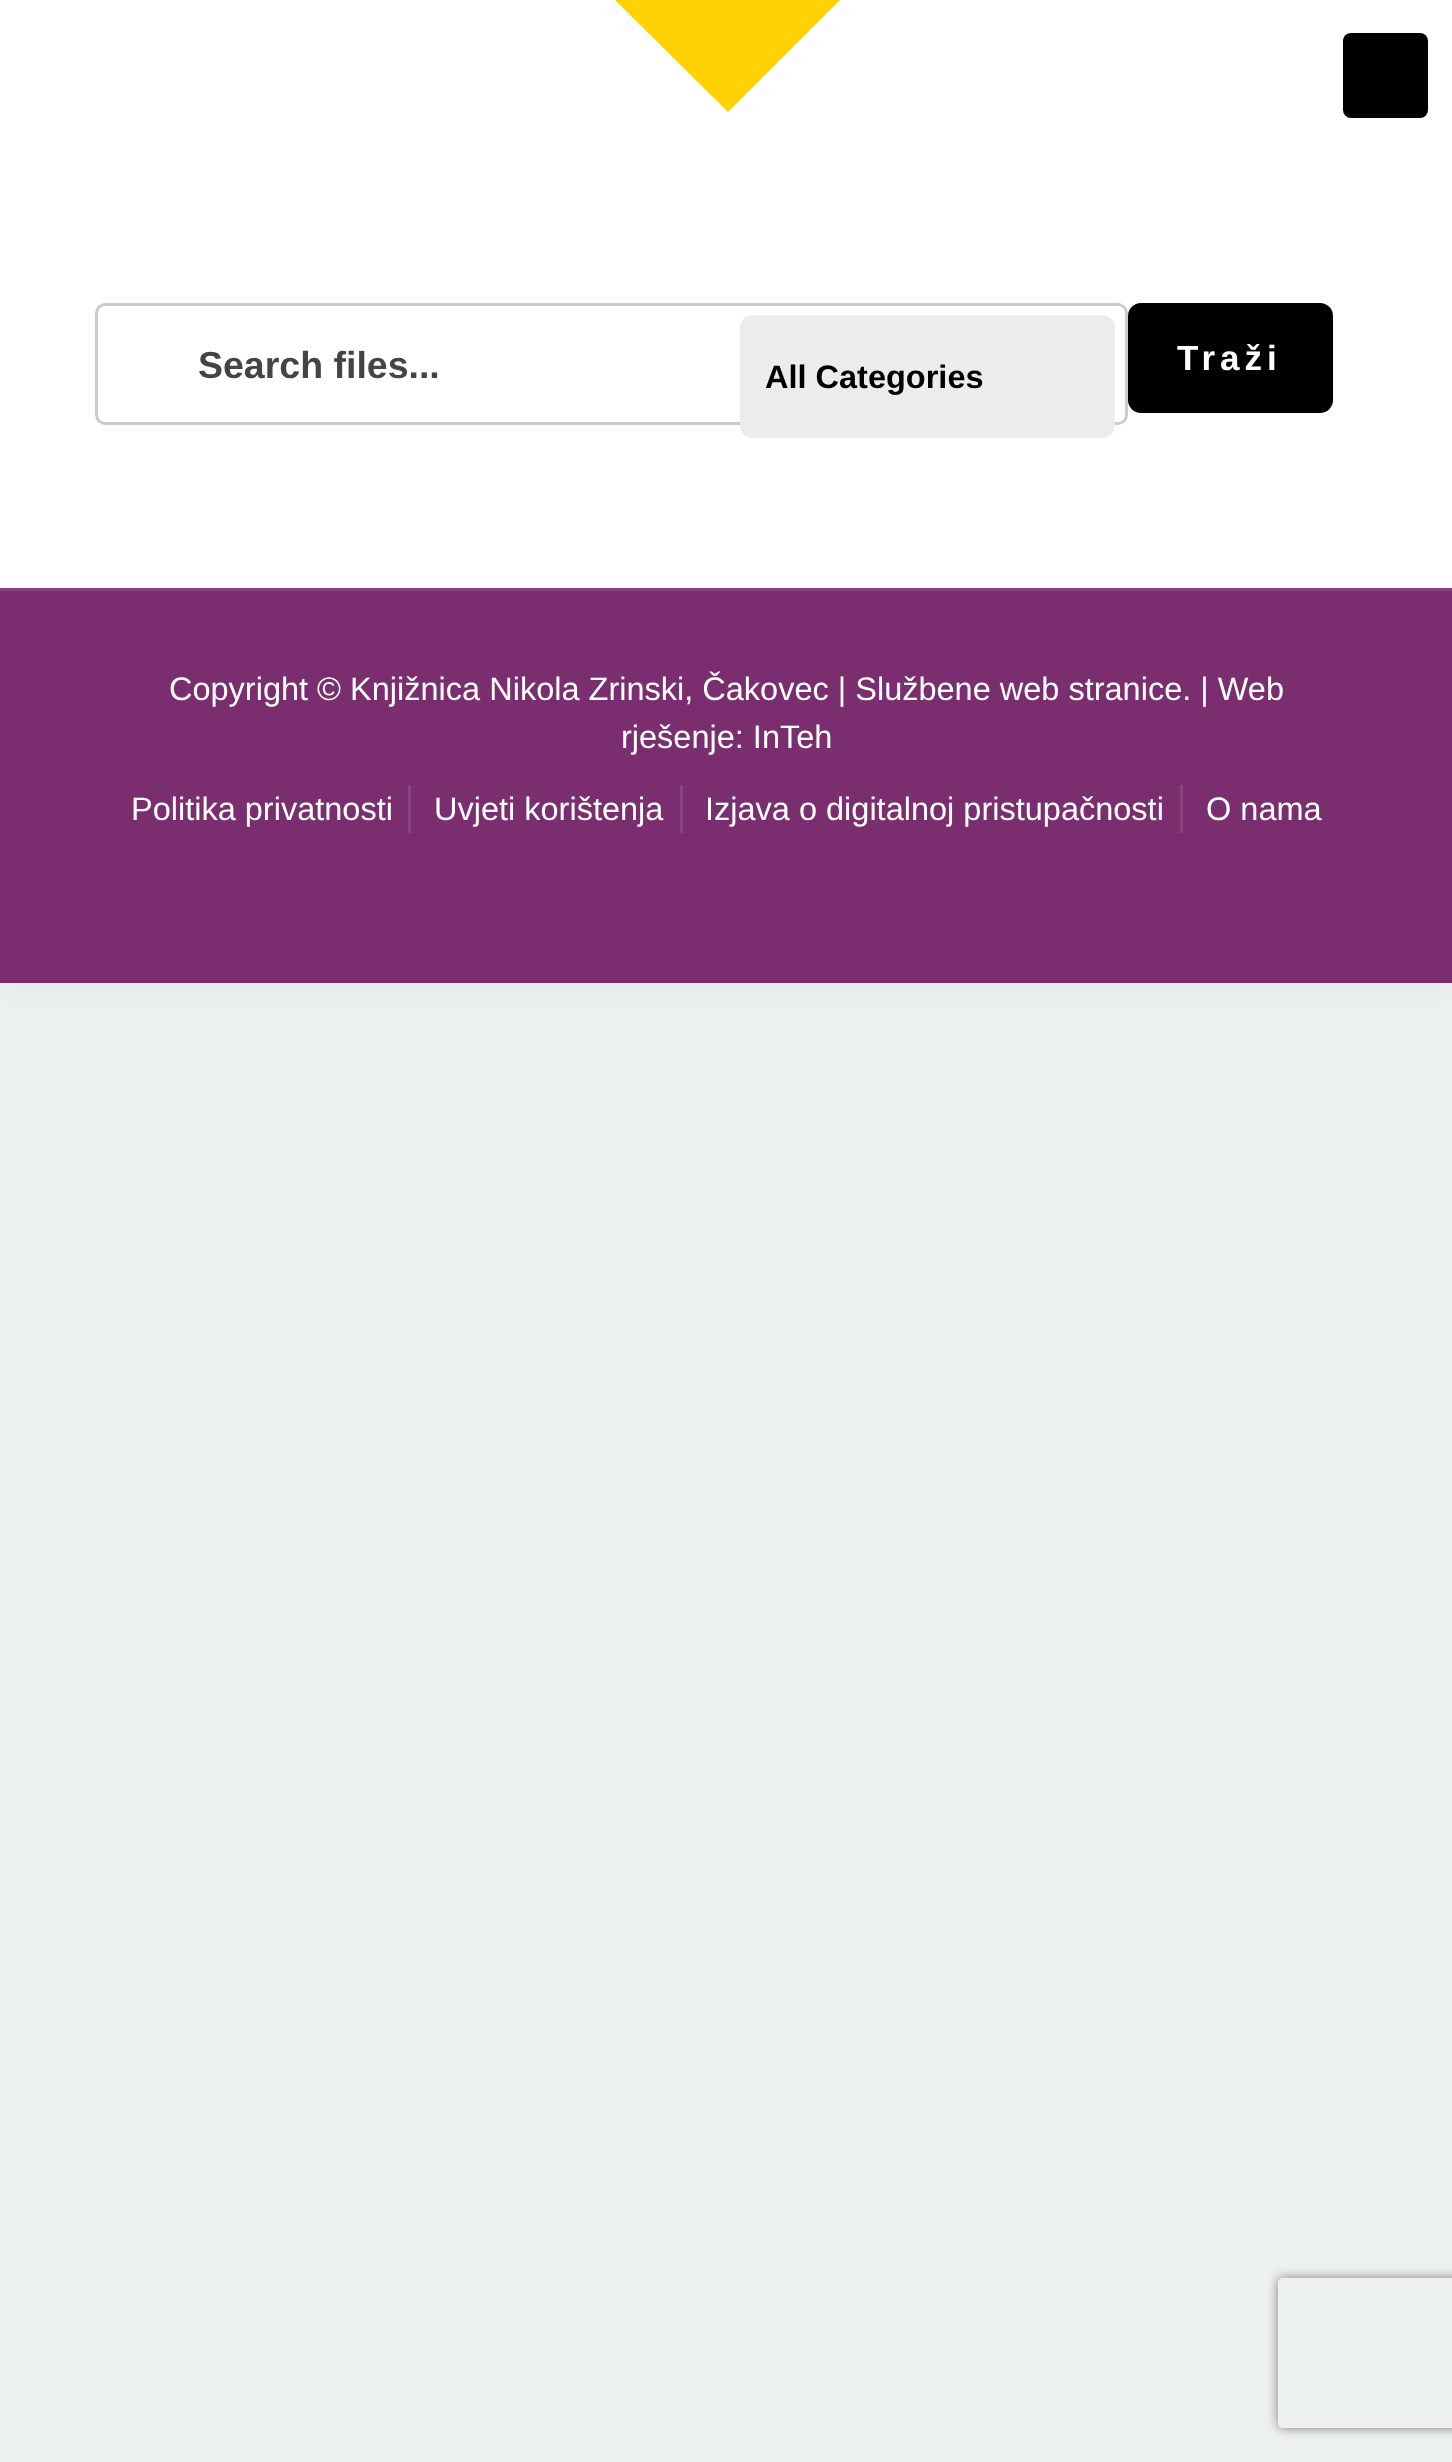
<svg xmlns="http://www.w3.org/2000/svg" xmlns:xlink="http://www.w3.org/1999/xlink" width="1452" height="2462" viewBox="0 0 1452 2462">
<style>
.cls-1{font:bold 37.5px Liberation Sans;fill:#444444}
.cls-2{font:bold 32.5px Liberation Sans;fill:#000000}
.cls-3{font:bold 35px Liberation Sans;letter-spacing:5px;fill:#ffffff}
.cls-4{font:32.5px Liberation Sans;fill:#ffffff}
</style>
<defs>
<clipPath id="clip1"><path d="M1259 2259H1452V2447H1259ZM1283 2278H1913C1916 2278 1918 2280 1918 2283V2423C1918 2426 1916 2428 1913 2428H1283C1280 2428 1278 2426 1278 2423V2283C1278 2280 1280 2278 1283 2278Z" clip-rule="evenodd"/></clipPath>
</defs>
<rect width="100%" height="100%" fill="#edf1f0"/>
<rect fill="#000000" fill-opacity="0.06" filter="blur(19px)" x="0" y="0" width="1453" height="983"/>
<rect fill="#ffffff" x="0" y="0" width="1452" height="588"/>
<path fill="#ffd204" d="M615 0H840L728 112Z"/>
<rect fill="#000000" x="1343" y="33" width="85" height="85" rx="8"/>
<rect fill="none" stroke="#cccccc" stroke-width="3" x="96.5" y="304.5" width="1030" height="119" rx="8.5"/>
<rect fill="#ececec" x="740" y="315" width="375" height="123" rx="13"/>
<rect fill="#000000" x="1128" y="303" width="205" height="110" rx="13"/>
<rect fill="#7a2e6f" x="0" y="591" width="1452" height="392"/>
<rect fill="#87437d" x="0" y="588" width="1452" height="3"/>
<rect fill="#87437d" x="408" y="785" width="3" height="48"/>
<rect fill="#87437d" x="680" y="785" width="3" height="48"/>
<rect fill="#87437d" x="1180" y="785" width="3" height="48"/>
<g clip-path="url(#clip1)">
<rect fill="#808080" filter="blur(6px)" x="1278" y="2278" width="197" height="150" rx="5"/>
</g>
<text class="cls-1" x="198" y="378">Search files...</text>
<text class="cls-2" x="765" y="388">All Categories</text>
<text class="cls-3" x="1177" y="370">Traži</text>
<text class="cls-4" x="169" y="700">Copyright © Knjižnica Nikola Zrinski, Čakovec | Službene web stranice. | Web</text>
<text class="cls-4" x="621" y="748">rješenje: InTeh</text>
<text class="cls-4" x="131" y="820">Politika privatnosti</text>
<text class="cls-4" x="434" y="820">Uvjeti korištenja</text>
<text class="cls-4" x="705" y="820">Izjava o digitalnoj pristupačnosti</text>
<text class="cls-4" x="1206" y="820">O nama</text>
</svg>
